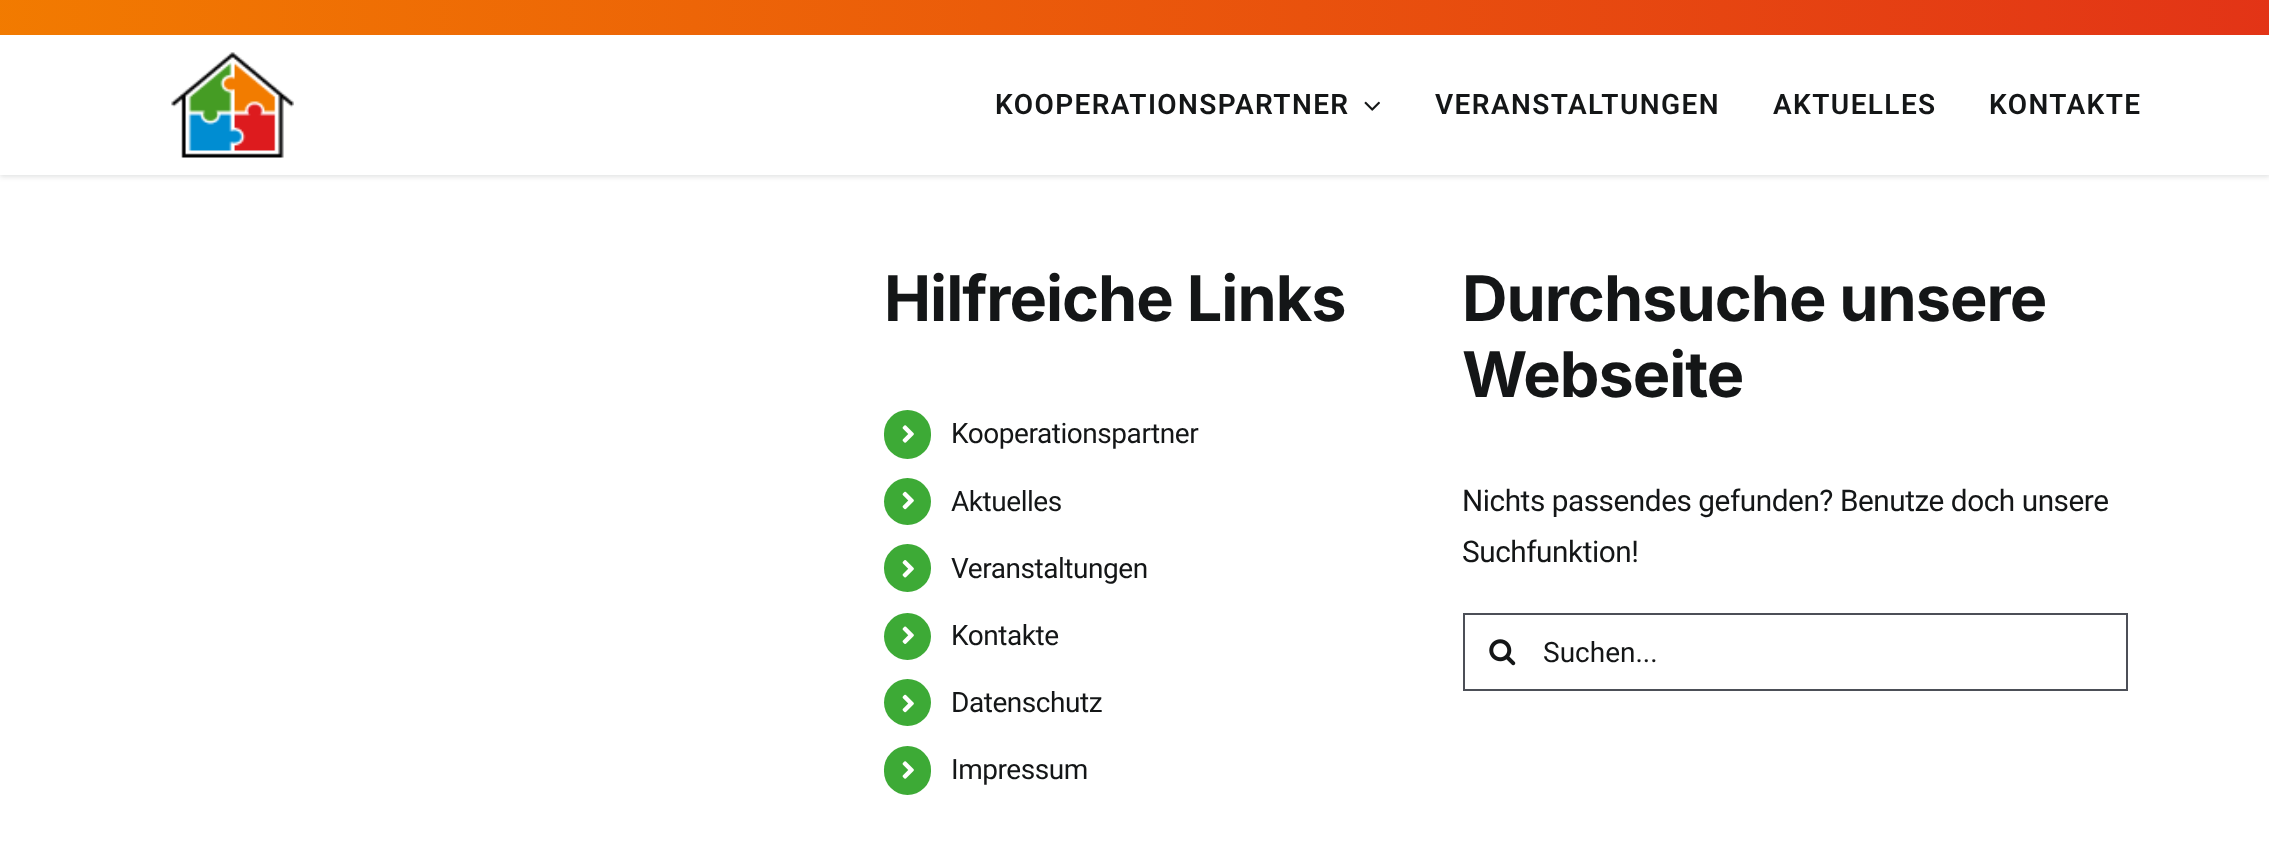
<svg xmlns="http://www.w3.org/2000/svg" xmlns:xlink="http://www.w3.org/1999/xlink" width="2269" height="857" viewBox="0 0 2269 857">
<style>
.cls-1{font:600 28px Roboto;letter-spacing:1.4px;fill:#141617}
.cls-2{font:bold 63px Inter;letter-spacing:-1px;fill:#141617}
.cls-3{font:28px Roboto;letter-spacing:-0.45px;fill:#141617}
.cls-4{font:29.75px Roboto;letter-spacing:-0.45px;fill:#141617}
.cls-5{font:28px Roboto;fill:#141617}
</style>
<defs>
<linearGradient id="g1" gradientUnits="userSpaceOnUse" x1="-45" y1="70" x2="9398" y2="70"><stop offset="0" stop-color="#f27c00"/><stop offset="0.33" stop-color="#dd1b1e"/><stop offset="0.67" stop-color="#008dd2"/><stop offset="1" stop-color="#3daa36"/></linearGradient>
</defs>
<rect width="100%" height="100%" fill="#ffffff"/>
<rect fill="#131516" fill-opacity="0.12" filter="blur(2.5px)" x="0" y="2" width="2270" height="175"/>
<rect fill="url(#g1)" x="0" y="0" width="2269" height="35"/>
<rect fill="#ffffff" x="0" y="35" width="2269" height="140"/>
<image xlink:href="image0.png" x="171" y="52" width="123" height="106"/>
<image xlink:href="image1.png" x="1364" y="101" width="16" height="10"/>
<rect fill="#3daa36" x="884" y="410" width="47" height="49" rx="23.5"/>
<image xlink:href="image2.png" x="902" y="425" width="12" height="18"/>
<circle fill="#3daa36" cx="907.5" cy="501.5" r="23.5"/>
<image xlink:href="image3.png" x="902" y="491" width="12" height="19"/>
<rect fill="#3daa36" x="884" y="544" width="47" height="48" rx="23.5"/>
<image xlink:href="image4.png" x="902" y="560" width="12" height="18"/>
<circle fill="#3daa36" cx="907.5" cy="636.5" r="23.5"/>
<image xlink:href="image5.png" x="902" y="626" width="12" height="18"/>
<circle fill="#3daa36" cx="907.5" cy="702.5" r="23.5"/>
<image xlink:href="image3.png" x="902" y="694" width="12" height="19"/>
<rect fill="#3daa36" x="884" y="746" width="47" height="49" rx="23.5"/>
<image xlink:href="image2.png" x="902" y="761" width="12" height="18"/>
<rect fill="none" stroke="#4c4f57" stroke-width="2" x="1464" y="614" width="663" height="76"/>
<image xlink:href="image6.png" x="1489" y="639" width="27" height="27"/>
<text class="cls-1" x="995" y="114">KOOPERATIONSPARTNER</text>
<text class="cls-1" x="1435" y="114">VERANSTALTUNGEN</text>
<text class="cls-1" x="1773" y="114">AKTUELLES</text>
<text class="cls-1" x="1989" y="114">KONTAKTE</text>
<text class="cls-2" x="884" y="321">Hilfreiche Links</text>
<text class="cls-3" x="951" y="443">Kooperationspartner</text>
<text class="cls-3" x="951" y="511">Aktuelles</text>
<text class="cls-3" x="951" y="578">Veranstaltungen</text>
<text class="cls-3" x="951" y="645">Kontakte</text>
<text class="cls-3" x="951" y="712">Datenschutz</text>
<text class="cls-3" x="951" y="779">Impressum</text>
<text class="cls-2"><tspan x="1462" y="321">Durchsuche unsere</tspan><tspan x="1462" y="397">Webseite</tspan></text>
<text class="cls-4"><tspan x="1462" y="511">Nichts passendes gefunden? Benutze doch unsere</tspan><tspan x="1462" y="562">Suchfunktion!</tspan></text>
<text class="cls-5" x="1543" y="662">Suchen...</text>
</svg>
